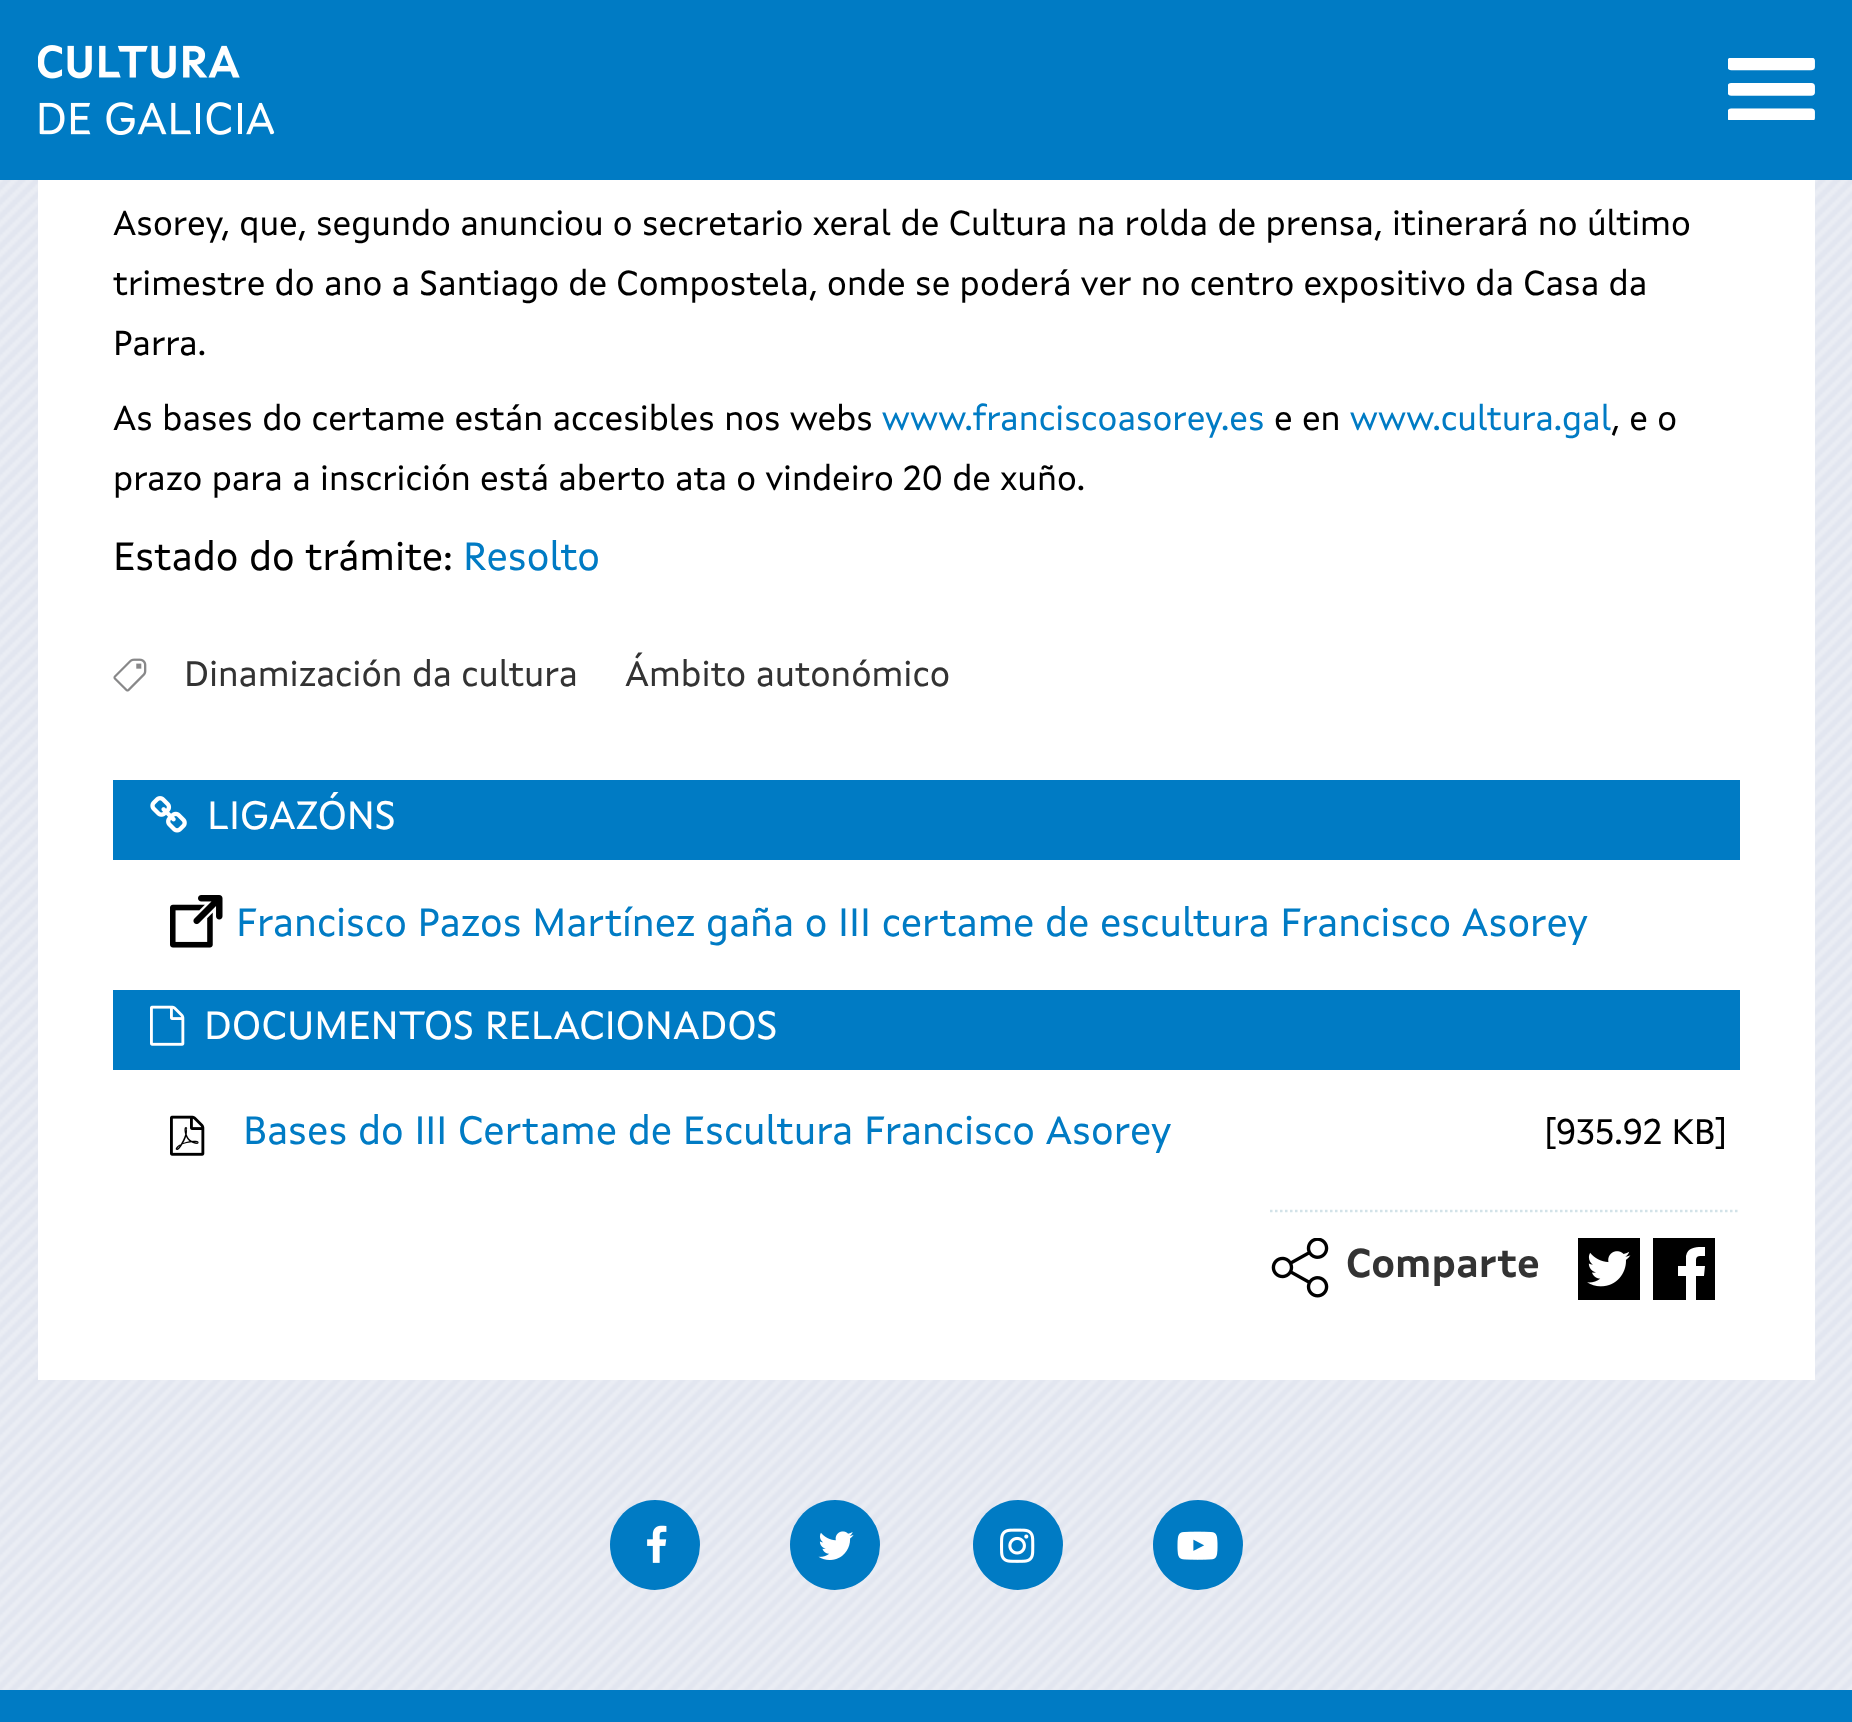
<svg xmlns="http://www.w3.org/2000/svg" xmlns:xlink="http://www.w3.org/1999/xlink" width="1852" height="1722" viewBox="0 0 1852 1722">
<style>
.cls-1{font:35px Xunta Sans;fill:#000000}
.cls-2{font:35px Xunta Sans;fill:#007bc4}
.cls-3{font:40px Xunta Sans;fill:#000000}
.cls-4{font:40px Xunta Sans;fill:#007bc4}
.cls-5{font:36px Xunta Sans;fill:#333333}
.cls-6{font:40px Xunta Sans;fill:#ffffff}
.cls-7{font:36px Xunta Sans;fill:#000000}
.cls-8{font:bold 40px Xunta Sans;fill:#333333}
</style>
<defs>
<clipPath id="clip1"><rect x="1653" y="1238" width="62" height="62"/></clipPath>
</defs>
<rect width="100%" height="100%" fill="#ffffff"/>
<image xlink:href="image0.png" x="0" y="180" width="1852" height="1510"/>
<rect fill="#007bc4" x="0" y="0" width="1852" height="180"/>
<image xlink:href="image1.png" x="38" y="45" width="237" height="90"/>
<image xlink:href="image2.png" x="1728" y="58" width="87" height="62"/>
<rect fill="#ffffff" x="38" y="180" width="1777" height="1200"/>
<image xlink:href="image3.png" x="113" y="658" width="34" height="34"/>
<rect fill="#007bc4" x="113" y="780" width="1627" height="80"/>
<image xlink:href="image4.png" x="150" y="796" width="37" height="37"/>
<image xlink:href="image5.png" x="170" y="895" width="53" height="53"/>
<rect fill="#007bc4" x="113" y="990" width="1627" height="80"/>
<image xlink:href="image6.png" x="150" y="1005" width="35" height="41"/>
<image xlink:href="image7.png" x="170" y="1115" width="35" height="41"/>
<path fill="none" stroke="#d2e2e8" stroke-width="2.5" stroke-dasharray="2.5 2.5" d="M1270 1211H1740"/>
<image xlink:href="image8.png" x="1271" y="1238" width="58" height="60"/>
<image xlink:href="image9.png" x="1578" y="1238" width="62" height="62"/>
<g clip-path="url(#clip1)">
<path fill="#000000" d="M1652 1238V1300H1686V1276H1678V1266H1686V1256C1688 1246 1698 1247 1705 1247V1256C1695 1256 1696 1256 1696 1266H1705L1704 1276H1696V1300H1715V1238Z"/>
</g>
<circle fill="#007bc4" cx="655" cy="1545" r="45"/>
<image xlink:href="image10.png" x="647" y="1525" width="20" height="38"/>
<circle fill="#007bc4" cx="835" cy="1545" r="45"/>
<image xlink:href="image11.png" x="818" y="1531" width="36" height="29"/>
<circle fill="#007bc4" cx="1018" cy="1545" r="45"/>
<image xlink:href="image12.png" x="1000" y="1528" width="35" height="35"/>
<circle fill="#007bc4" cx="1198" cy="1545" r="45"/>
<image xlink:href="image13.png" x="1177" y="1531" width="41" height="29"/>
<rect fill="#007bc4" x="0" y="1690" width="1852" height="32"/>
<text class="cls-1"><tspan x="113" y="235">Asorey, que, segundo anunciou o secretario xeral de Cultura na rolda de prensa, itinerará no último</tspan><tspan x="113" y="295">trimestre do ano a Santiago de Compostela, onde se poderá ver no centro expositivo da Casa da</tspan><tspan x="113" y="355">Parra.</tspan></text>
<text class="cls-1" x="113" y="430">As bases do certame están accesibles nos webs</text>
<text class="cls-2" x="882" y="430">www.franciscoasorey.es</text>
<text class="cls-1" x="1274" y="430">e en</text>
<text class="cls-2" x="1350" y="430">www.cultura.gal</text>
<text class="cls-1" x="1611" y="430">, e o</text>
<text class="cls-1" x="113" y="490">prazo para a inscrición está aberto ata o vindeiro 20 de xuño.</text>
<text class="cls-3" x="113" y="570">Estado do trámite:</text>
<text class="cls-4" x="463" y="570">Resolto</text>
<text class="cls-5" x="184" y="686">Dinamización da cultura</text>
<text class="cls-5" x="625" y="686">Ámbito autonómico</text>
<text class="cls-6" x="207" y="829">LIGAZÓNS</text>
<text class="cls-4" x="236" y="936">Francisco Pazos Martínez gaña o III certame de escultura Francisco Asorey</text>
<text class="cls-6" x="204" y="1039">DOCUMENTOS RELACIONADOS</text>
<text class="cls-4" x="243" y="1144">Bases do III Certame de Escultura Francisco Asorey</text>
<text class="cls-7" x="1544" y="1144">[935.92 KB]</text>
<text class="cls-8" x="1346" y="1277">Comparte</text>
</svg>
